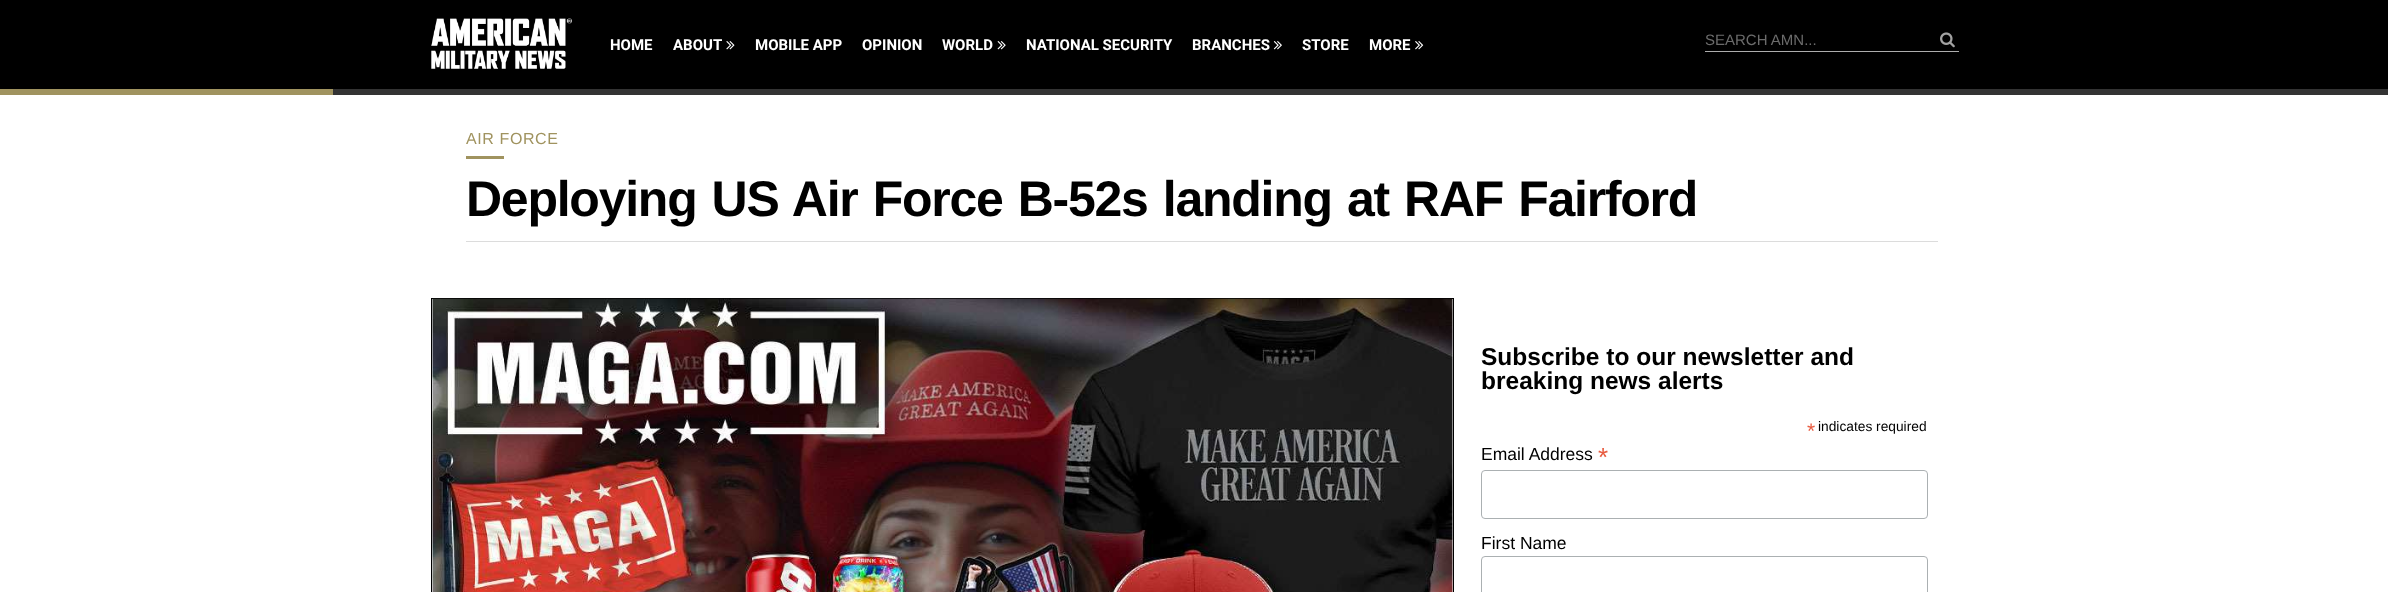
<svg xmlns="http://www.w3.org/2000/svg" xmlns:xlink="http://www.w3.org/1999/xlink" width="2388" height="592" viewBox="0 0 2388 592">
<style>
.cls-1{font:bold 15px Roboto;fill:#ffffff}
.cls-2{font:15px Liberation Sans;fill:#6b6b6b}
.cls-3{font:16px Liberation Sans;letter-spacing:0.6px;fill:#a0935f}
.cls-4{font:bold 50px Liberation Sans;letter-spacing:-1.25px;fill:#000000}
.cls-5{font:bold 24.5px Liberation Sans;fill:#000000}
.cls-6{font:21px Liberation Sans;fill:#e85c41}
.cls-7{font:13.75px Liberation Sans;fill:#000000}
.cls-8{font:17.5px Liberation Sans;fill:#000000}
.cls-9{font:26px Liberation Sans;fill:#e85c41}
</style>
<rect width="100%" height="100%" fill="#ffffff"/>
<rect fill="#000000" x="0" y="0" width="2388" height="89"/>
<image xlink:href="image0.png" x="431" y="18" width="141" height="51"/>
<image xlink:href="image1.png" x="726" y="41" width="9" height="9"/>
<image xlink:href="image2.png" x="997" y="41" width="9" height="9"/>
<image xlink:href="image3.png" x="1273" y="41" width="9" height="9"/>
<image xlink:href="image4.png" x="1415" y="41" width="9" height="9"/>
<rect fill="#adadad" x="1705" y="51" width="254" height="1"/>
<image xlink:href="image5.png" x="1940" y="32" width="15" height="16"/>
<rect fill="#333333" x="333" y="89" width="2055" height="6"/>
<rect fill="#a0935f" x="0" y="89" width="333" height="6"/>
<rect fill="#a0935f" x="466" y="156" width="38" height="3"/>
<rect fill="#dcdcdc" x="466" y="241" width="1472" height="1"/>
<rect fill="none" stroke="#000000" x="431.5" y="298.5" width="1022" height="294"/>
<image xlink:href="image6.png" x="432" y="298" width="1021" height="294"/>
<rect fill="none" stroke="#abb0b2" x="1481.5" y="470.5" width="446" height="48" rx="3.5"/>
<rect fill="none" stroke="#abb0b2" x="1481.5" y="556.5" width="446" height="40" rx="3.5"/>
<text class="cls-1" x="610" y="50">HOME</text>
<text class="cls-1" x="673" y="50">ABOUT</text>
<text class="cls-1" x="755" y="50">MOBILE APP</text>
<text class="cls-1" x="862" y="50">OPINION</text>
<text class="cls-1" x="942" y="50">WORLD</text>
<text class="cls-1" x="1026" y="50">NATIONAL SECURITY</text>
<text class="cls-1" x="1192" y="50">BRANCHES</text>
<text class="cls-1" x="1302" y="50">STORE</text>
<text class="cls-1" x="1369" y="50">MORE</text>
<text class="cls-2" x="1705" y="45">SEARCH AMN...</text>
<text class="cls-3" x="466" y="144">AIR FORCE</text>
<text class="cls-4" x="466" y="216" word-spacing="2.5">Deploying US Air Force B-52s landing at RAF Fairford</text>
<text class="cls-5"><tspan x="1481" y="365">Subscribe to our newsletter and</tspan><tspan x="1481" y="389">breaking news alerts</tspan></text>
<text class="cls-6" x="1807" y="438">*</text>
<text class="cls-7" x="1818" y="431">indicates required</text>
<text class="cls-8" x="1481" y="460">Email Address</text>
<text class="cls-9" x="1598" y="466">*</text>
<text class="cls-8" x="1481" y="549">First Name</text>
</svg>
